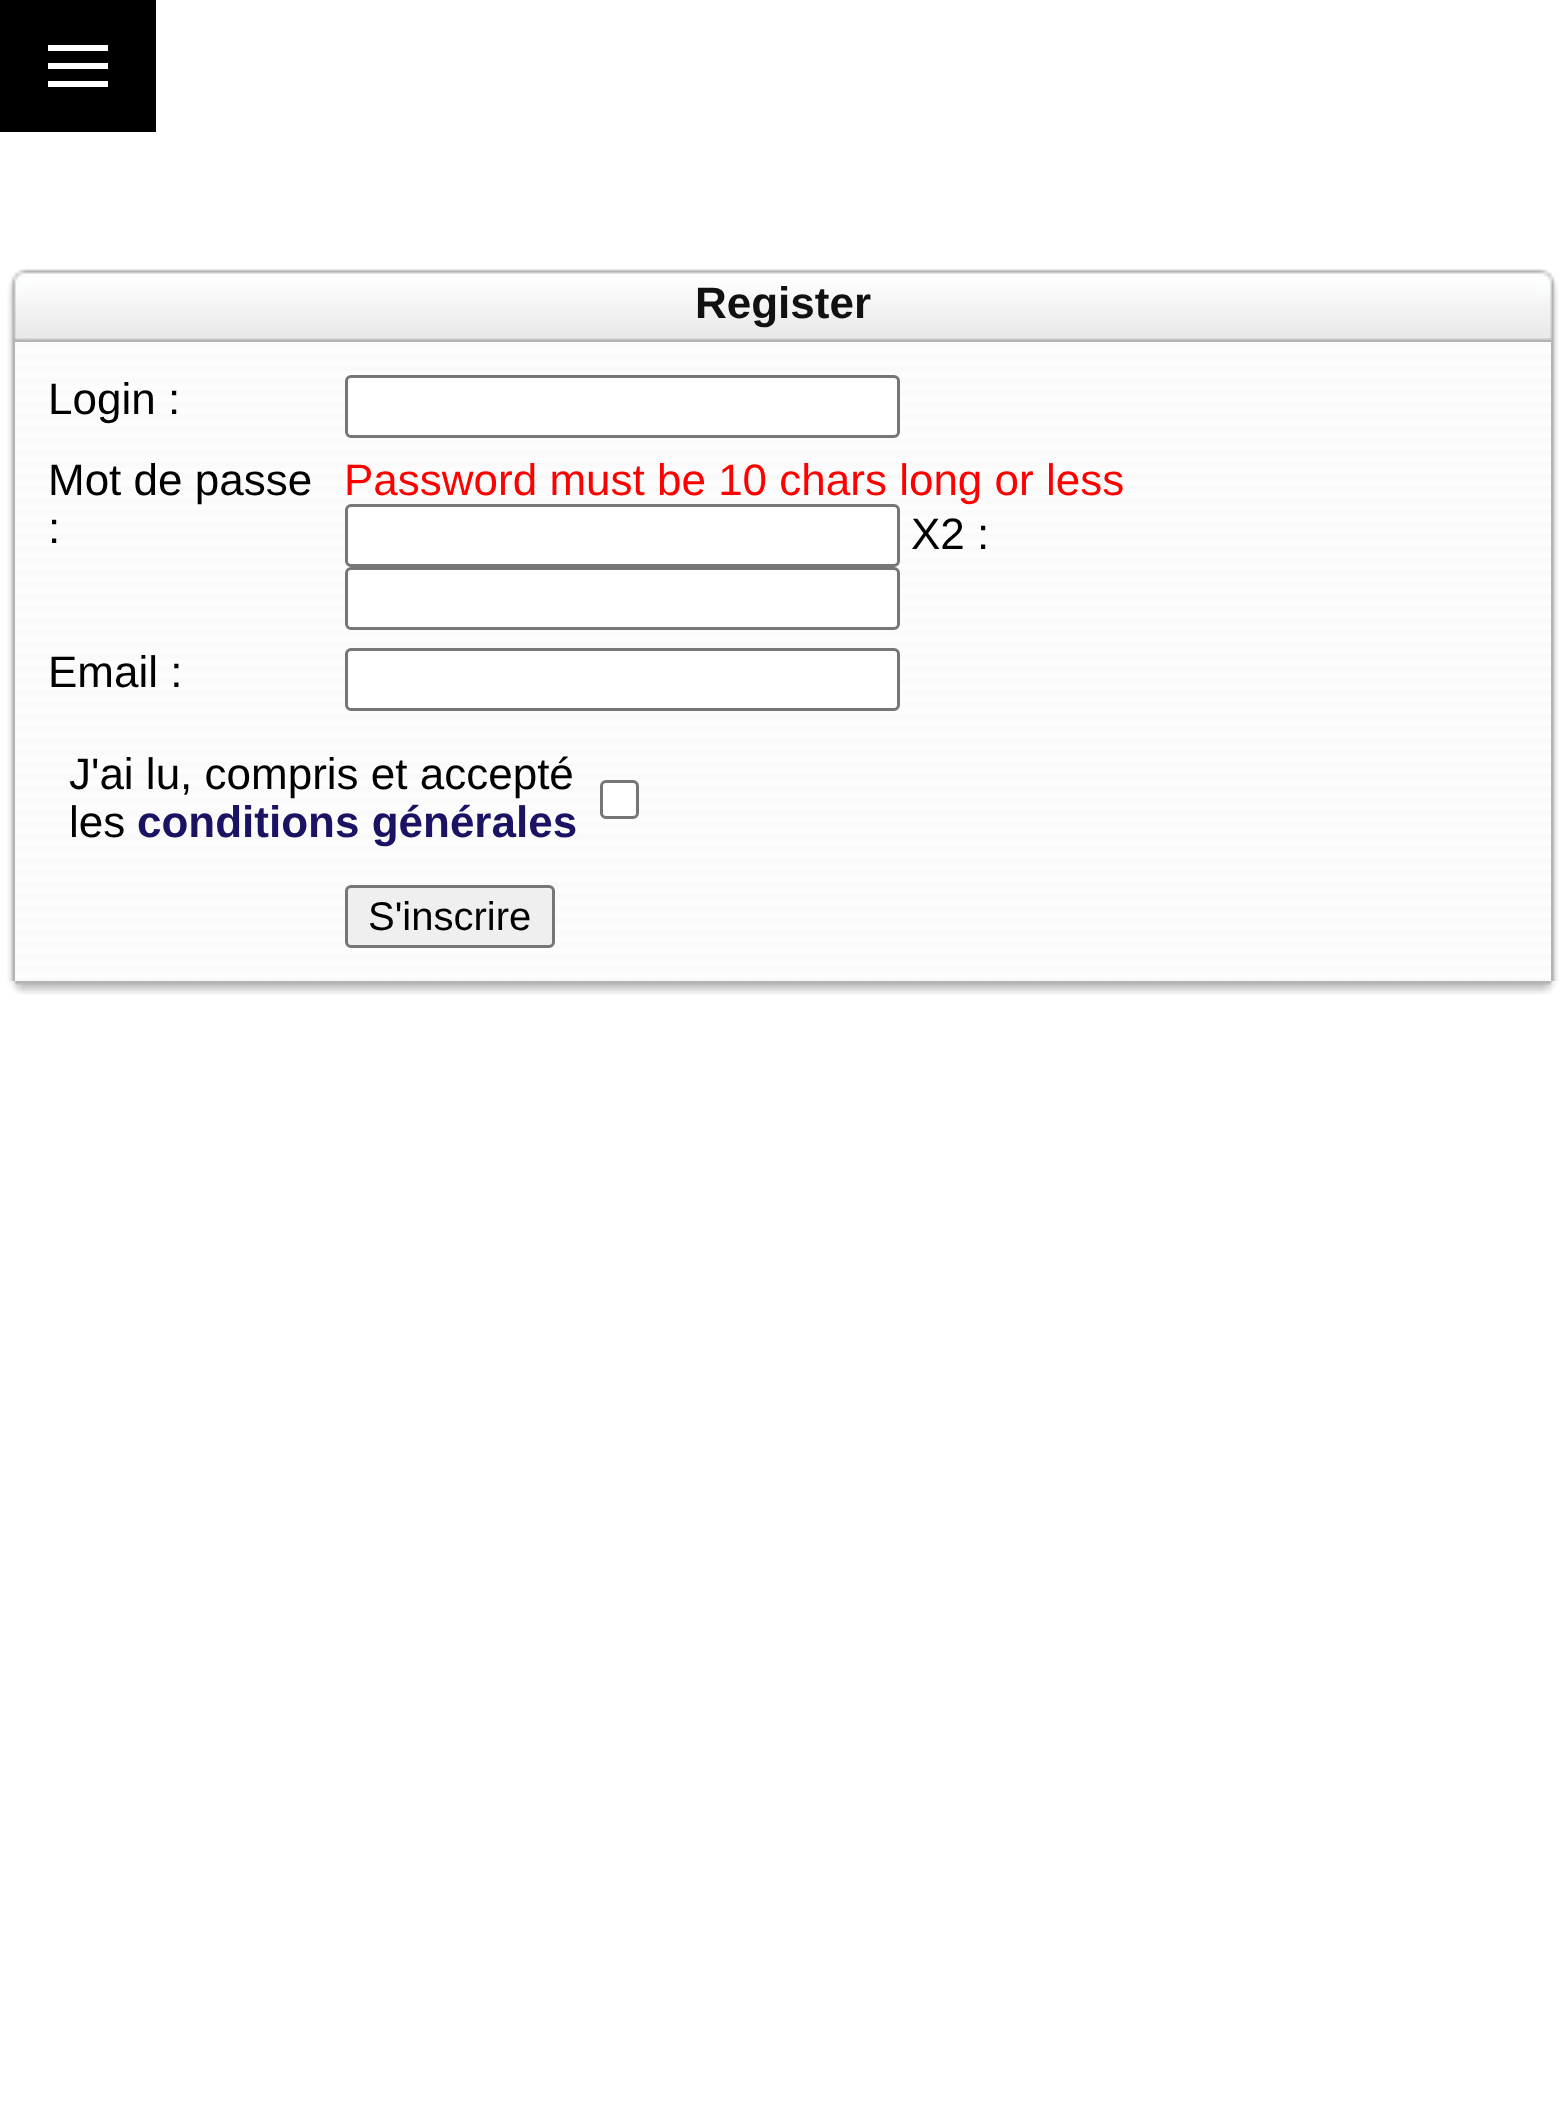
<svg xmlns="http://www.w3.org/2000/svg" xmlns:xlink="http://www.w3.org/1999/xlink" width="1564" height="2111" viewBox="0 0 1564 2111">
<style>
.cls-1{font:bold 44px Liberation Sans;fill:#111111}
.cls-2{font:44px Liberation Sans;fill:#000000}
.cls-3{font:44px Liberation Sans;fill:#ff0000}
.cls-4{font:bold 44px Liberation Sans;fill:#1a1364}
.cls-5{font:40px Liberation Sans;fill:#000000}
</style>
<rect width="100%" height="100%" fill="#ffffff"/>
<rect fill="#000000" x="0" y="0" width="156" height="132"/>
<rect fill="#ffffff" x="48" y="63" width="60" height="6"/>
<rect fill="#ffffff" x="48" y="45" width="60" height="6"/>
<rect fill="#ffffff" x="48" y="81" width="60" height="6"/>
<image xlink:href="image0.png" x="7" y="269" width="20" height="73"/>
<image xlink:href="image1.png" x="27" y="269" width="1512" height="73"/>
<image xlink:href="image2.png" x="1539" y="269" width="20" height="73"/>
<image xlink:href="image3.png" x="7" y="342" width="8" height="639"/>
<image xlink:href="image4.png" x="1551" y="342" width="8" height="639"/>
<image xlink:href="image5.png" x="15" y="342" width="1536" height="639"/>
<rect fill="#ffffff" stroke="#767676" stroke-width="3" x="346.5" y="376.5" width="552" height="60" rx="4.5"/>
<rect fill="#ffffff" stroke="#767676" stroke-width="3" x="346.5" y="568.5" width="552" height="60" rx="4.5"/>
<rect fill="#ffffff" stroke="#767676" stroke-width="3" x="346.5" y="649.5" width="552" height="60" rx="4.5"/>
<rect fill="#ffffff" stroke="#767676" stroke-width="3" x="601.5" y="781.5" width="36" height="36" rx="4.5"/>
<rect fill="#efefef" stroke="#767676" stroke-width="3" x="346.5" y="886.5" width="207" height="60" rx="4.5"/>
<image xlink:href="image6.png" x="0" y="981" width="23" height="14"/>
<image xlink:href="image7.png" x="23" y="981" width="1520" height="14"/>
<image xlink:href="image8.png" x="1543" y="981" width="21" height="14"/>
<text class="cls-1" x="695" y="318">Register</text>
<text class="cls-2"><tspan x="48" y="414">Login :</tspan><tspan x="48" y="495">Mot de passe</tspan><tspan x="48" y="543">:</tspan></text>
<text class="cls-3" x="344" y="495">Password must be 10 chars long or less</text>
<rect fill="#ffffff" stroke="#767676" stroke-width="3" x="346.5" y="505.5" width="552" height="60" rx="4.5"/>
<text class="cls-2" x="911" y="549">X2 :</text>
<text class="cls-2" x="48" y="687">Email :</text>
<text class="cls-2"><tspan x="69" y="789">J'ai lu, compris et accepté</tspan><tspan x="69" y="837">les</tspan></text>
<text class="cls-4" x="137" y="837">conditions générales</text>
<text class="cls-5" x="368" y="930">S'inscrire</text>
</svg>
